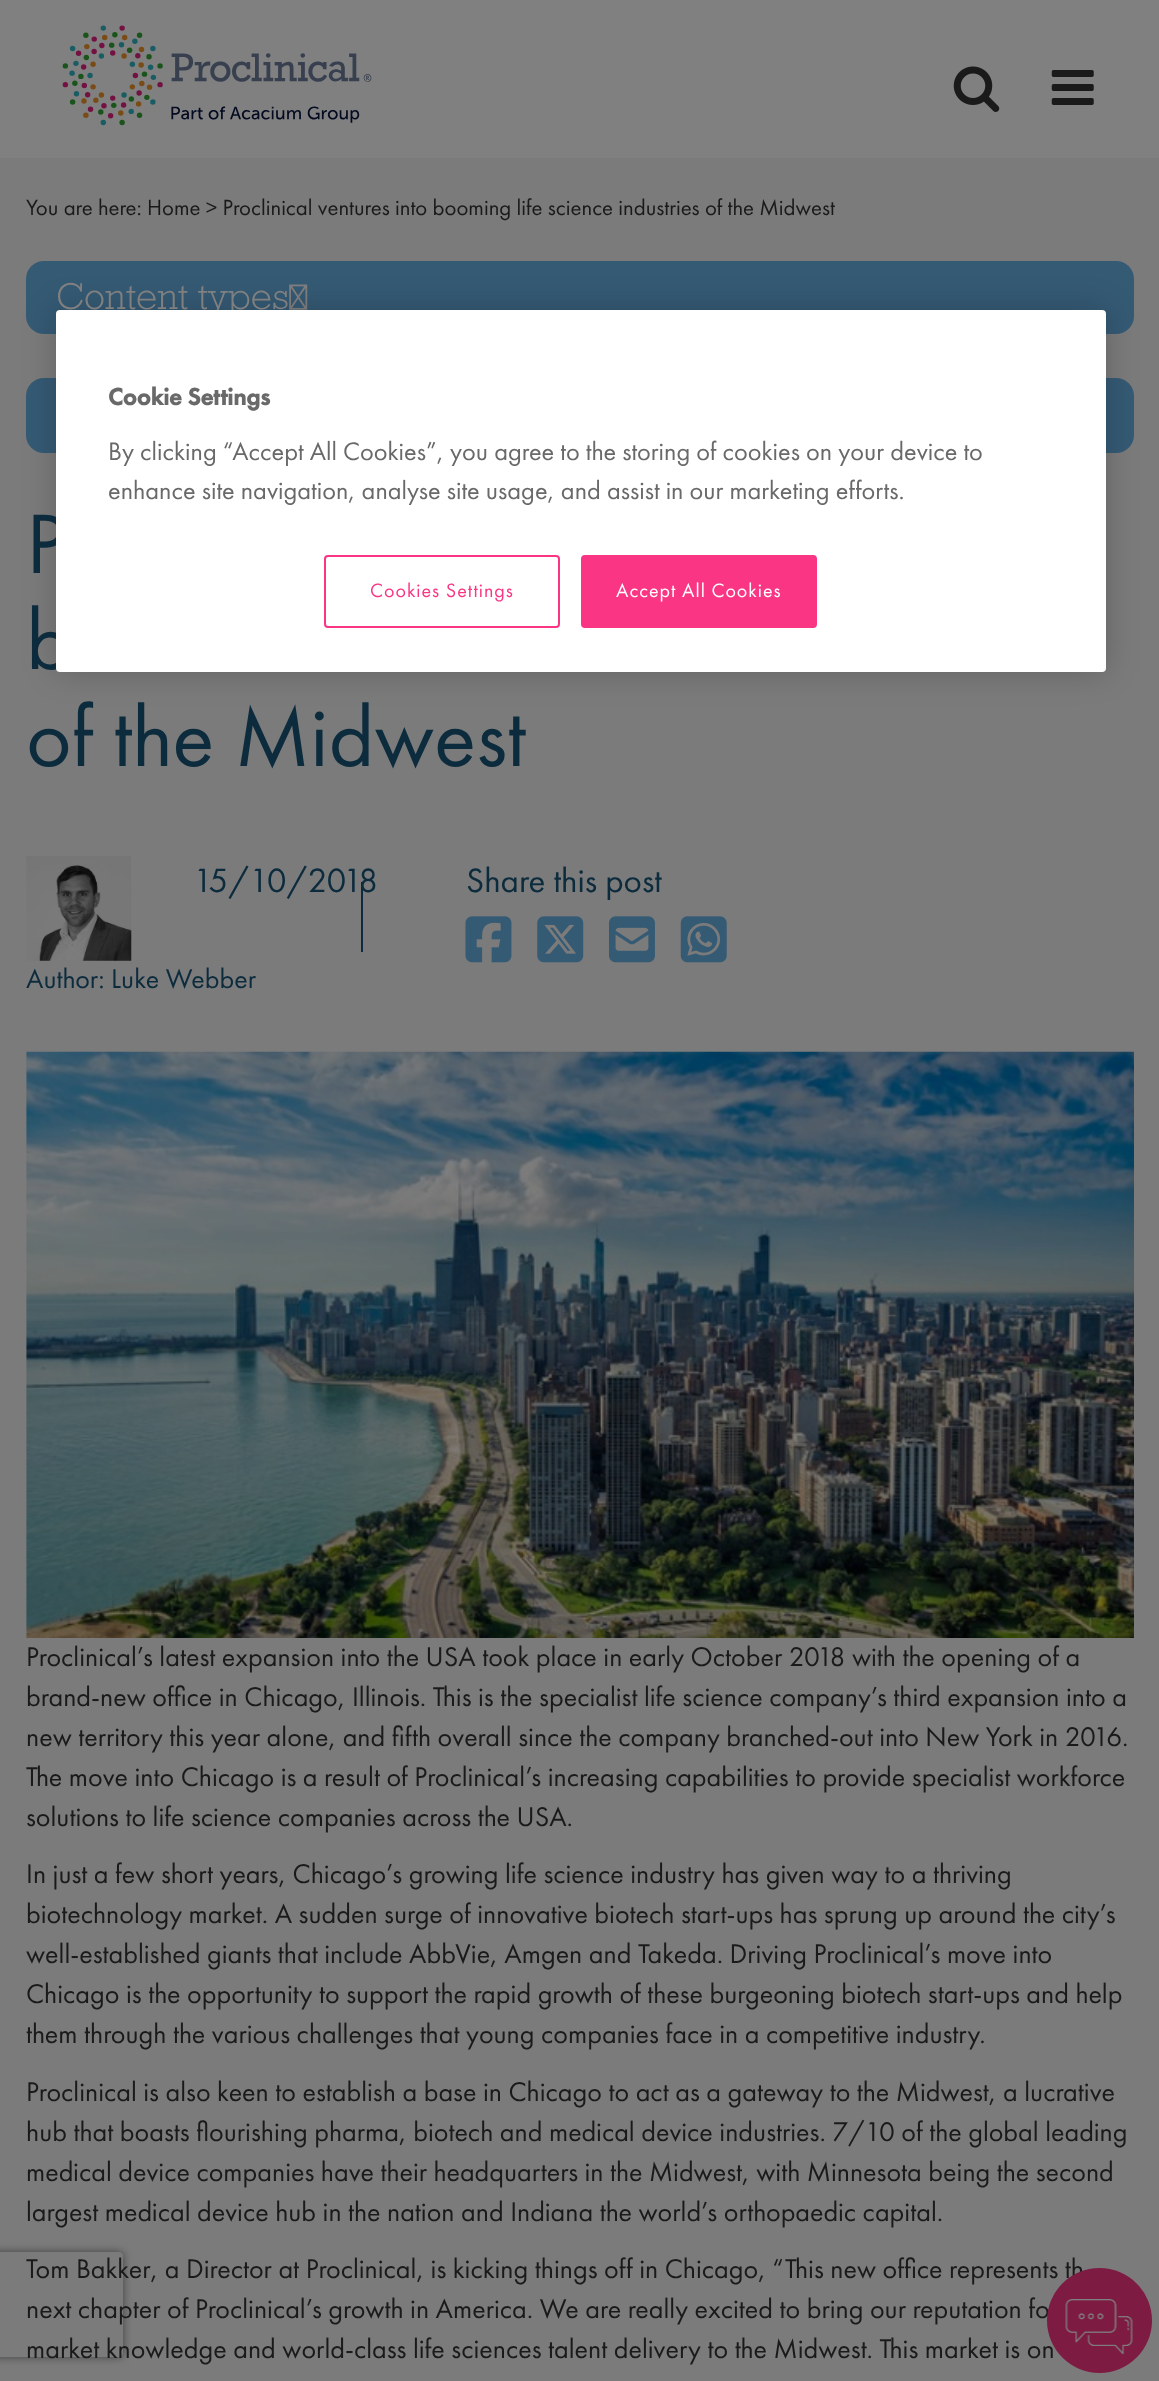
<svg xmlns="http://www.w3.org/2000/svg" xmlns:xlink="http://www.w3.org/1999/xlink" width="1159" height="2381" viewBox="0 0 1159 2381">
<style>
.cls-1{font:22.75px Futura PT;fill:#1a1a1a}
.cls-2{font:300 35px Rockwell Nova;fill:#808080}
.cls-3{font:87.5px Futura PT;fill:#0c2b3d}
.cls-4{font:35px Futura PT;fill:#0c2b3d}
.cls-5{font:28px Futura PT;fill:#0c2b3d}
.cls-6{font:28px Futura PT;fill:#1a1a1a}
.cls-7{font:bold 24.5px Futura PT;fill:#696969}
.cls-8{font:26.25px Futura PT;fill:#696969}
.cls-9{font:20px Futura PT;letter-spacing:1px;fill:#fa3584}
.cls-10{font:20px Futura PT;letter-spacing:1px;fill:#ffffff}
</style>
<defs>
<clipPath id="clip1"><path d="M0 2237H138V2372H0ZM-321 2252H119C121 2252 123 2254 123 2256V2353C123 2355 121 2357 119 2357H-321C-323 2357-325 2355-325 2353V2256C-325 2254-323 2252-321 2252Z" clip-rule="evenodd"/></clipPath>
</defs>
<rect width="100%" height="100%" fill="#7b7b7b"/>
<rect fill="#808080" x="0" y="0" width="1159" height="158"/>
<image xlink:href="image0.png" x="62" y="25" width="310" height="101"/>
<image xlink:href="image1.png" x="953" y="66" width="47" height="46"/>
<image xlink:href="image2.png" x="1051" y="70" width="43" height="35"/>
<rect fill="#355a74" x="26" y="261" width="1108" height="73" rx="18"/>
<image xlink:href="image3.png" x="289" y="284" width="19" height="26"/>
<rect fill="#355a74" x="26" y="378" width="1108" height="75" rx="18"/>
<image xlink:href="image4.png" x="26" y="856" width="106" height="105"/>
<rect fill="#0c2b3d" x="361" y="882" width="2" height="70"/>
<image xlink:href="image5.png" x="465" y="916" width="47" height="47"/>
<image xlink:href="image6.png" x="537" y="916" width="47" height="47"/>
<image xlink:href="image7.png" x="609" y="916" width="46" height="47"/>
<image xlink:href="image8.png" x="680" y="916" width="47" height="47"/>
<image xlink:href="image9.png" x="26" y="1051" width="1108" height="587"/>
<rect fill="#000000" fill-opacity="0.2" filter="blur(16px)" x="56" y="310" width="1050" height="362" rx="4"/>
<g clip-path="url(#clip1)">
<rect fill="#404040" filter="blur(4.5px)" x="-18" y="2252" width="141" height="105" rx="4"/>
</g>
<text class="cls-1" x="26" y="215">You are here: Home &gt; Proclinical ventures into booming life science industries of the Midwest</text>
<text class="cls-2" x="56" y="309">Content types</text>
<text class="cls-3"><tspan x="26" y="573">P</tspan><tspan x="26" y="669">b</tspan><tspan x="26" y="766">of the Midwest</tspan></text>
<text class="cls-4" x="193" y="892">15/10/2018</text>
<text class="cls-5" x="26" y="988">Author: Luke Webber</text>
<text class="cls-4" x="466" y="892">Share this post</text>
<text class="cls-6"><tspan x="26" y="1666">Proclinical’s latest expansion into the USA took place in early October 2018 with the opening of a</tspan><tspan x="26" y="1706">brand-new office in Chicago, Illinois. This is the specialist life science company’s third expansion into a</tspan><tspan x="26" y="1746">new territory this year alone, and fifth overall since the company branched-out into New York in 2016.</tspan><tspan x="26" y="1786">The move into Chicago is a result of Proclinical’s increasing capabilities to provide specialist workforce</tspan><tspan x="26" y="1826">solutions to life science companies across the USA.</tspan></text>
<text class="cls-6"><tspan x="26" y="1883">In just a few short years, Chicago’s growing life science industry has given way to a thriving</tspan><tspan x="26" y="1923">biotechnology market. A sudden surge of innovative biotech start-ups has sprung up around the city’s</tspan><tspan x="26" y="1963">well-established giants that include AbbVie, Amgen and Takeda. Driving Proclinical’s move into</tspan><tspan x="26" y="2003">Chicago is the opportunity to support the rapid growth of these burgeoning biotech start-ups and help</tspan><tspan x="26" y="2043">them through the various challenges that young companies face in a competitive industry.</tspan></text>
<text class="cls-6"><tspan x="26" y="2101">Proclinical is also keen to establish a base in Chicago to act as a gateway to the Midwest, a lucrative</tspan><tspan x="26" y="2141">hub that boasts flourishing pharma, biotech and medical device industries. 7/10 of the global leading</tspan><tspan x="26" y="2181">medical device companies have their headquarters in the Midwest, with Minnesota being the second</tspan><tspan x="26" y="2221">largest medical device hub in the nation and Indiana the world’s orthopaedic capital.</tspan></text>
<text class="cls-6"><tspan x="26" y="2278">Tom Bakker, a Director at Proclinical, is kicking things off in Chicago, “This new office represents th</tspan><tspan x="26" y="2318">next chapter of Proclinical’s growth in America. We are really excited to bring our reputation fo</tspan><tspan x="26" y="2358">market knowledge and world-class life sciences talent delivery to the Midwest. This market is on</tspan></text>
<rect fill="#ffffff" x="56" y="310" width="1050" height="362" rx="4"/>
<text class="cls-7" x="108" y="405">Cookie Settings</text>
<text class="cls-8"><tspan x="108" y="460">By clicking “Accept All Cookies”, you agree to the storing of cookies on your device to</tspan><tspan x="108" y="499">enhance site navigation, analyse site usage, and assist in our marketing efforts.</tspan></text>
<rect fill="none" stroke="#fa3584" stroke-width="2" x="325" y="556" width="234" height="71" rx="3"/>
<text class="cls-9" x="370" y="597">Cookies Settings</text>
<rect fill="#fa3584" stroke="#fa3584" stroke-width="2" x="582" y="556" width="234" height="71" rx="3"/>
<text class="cls-10" x="616" y="597">Accept All Cookies</text>
<circle fill="#7d1b42" cx="1099.5" cy="2320.5" r="52.5"/>
<image xlink:href="image10.png" x="1065" y="2299" width="68" height="56"/>
</svg>
